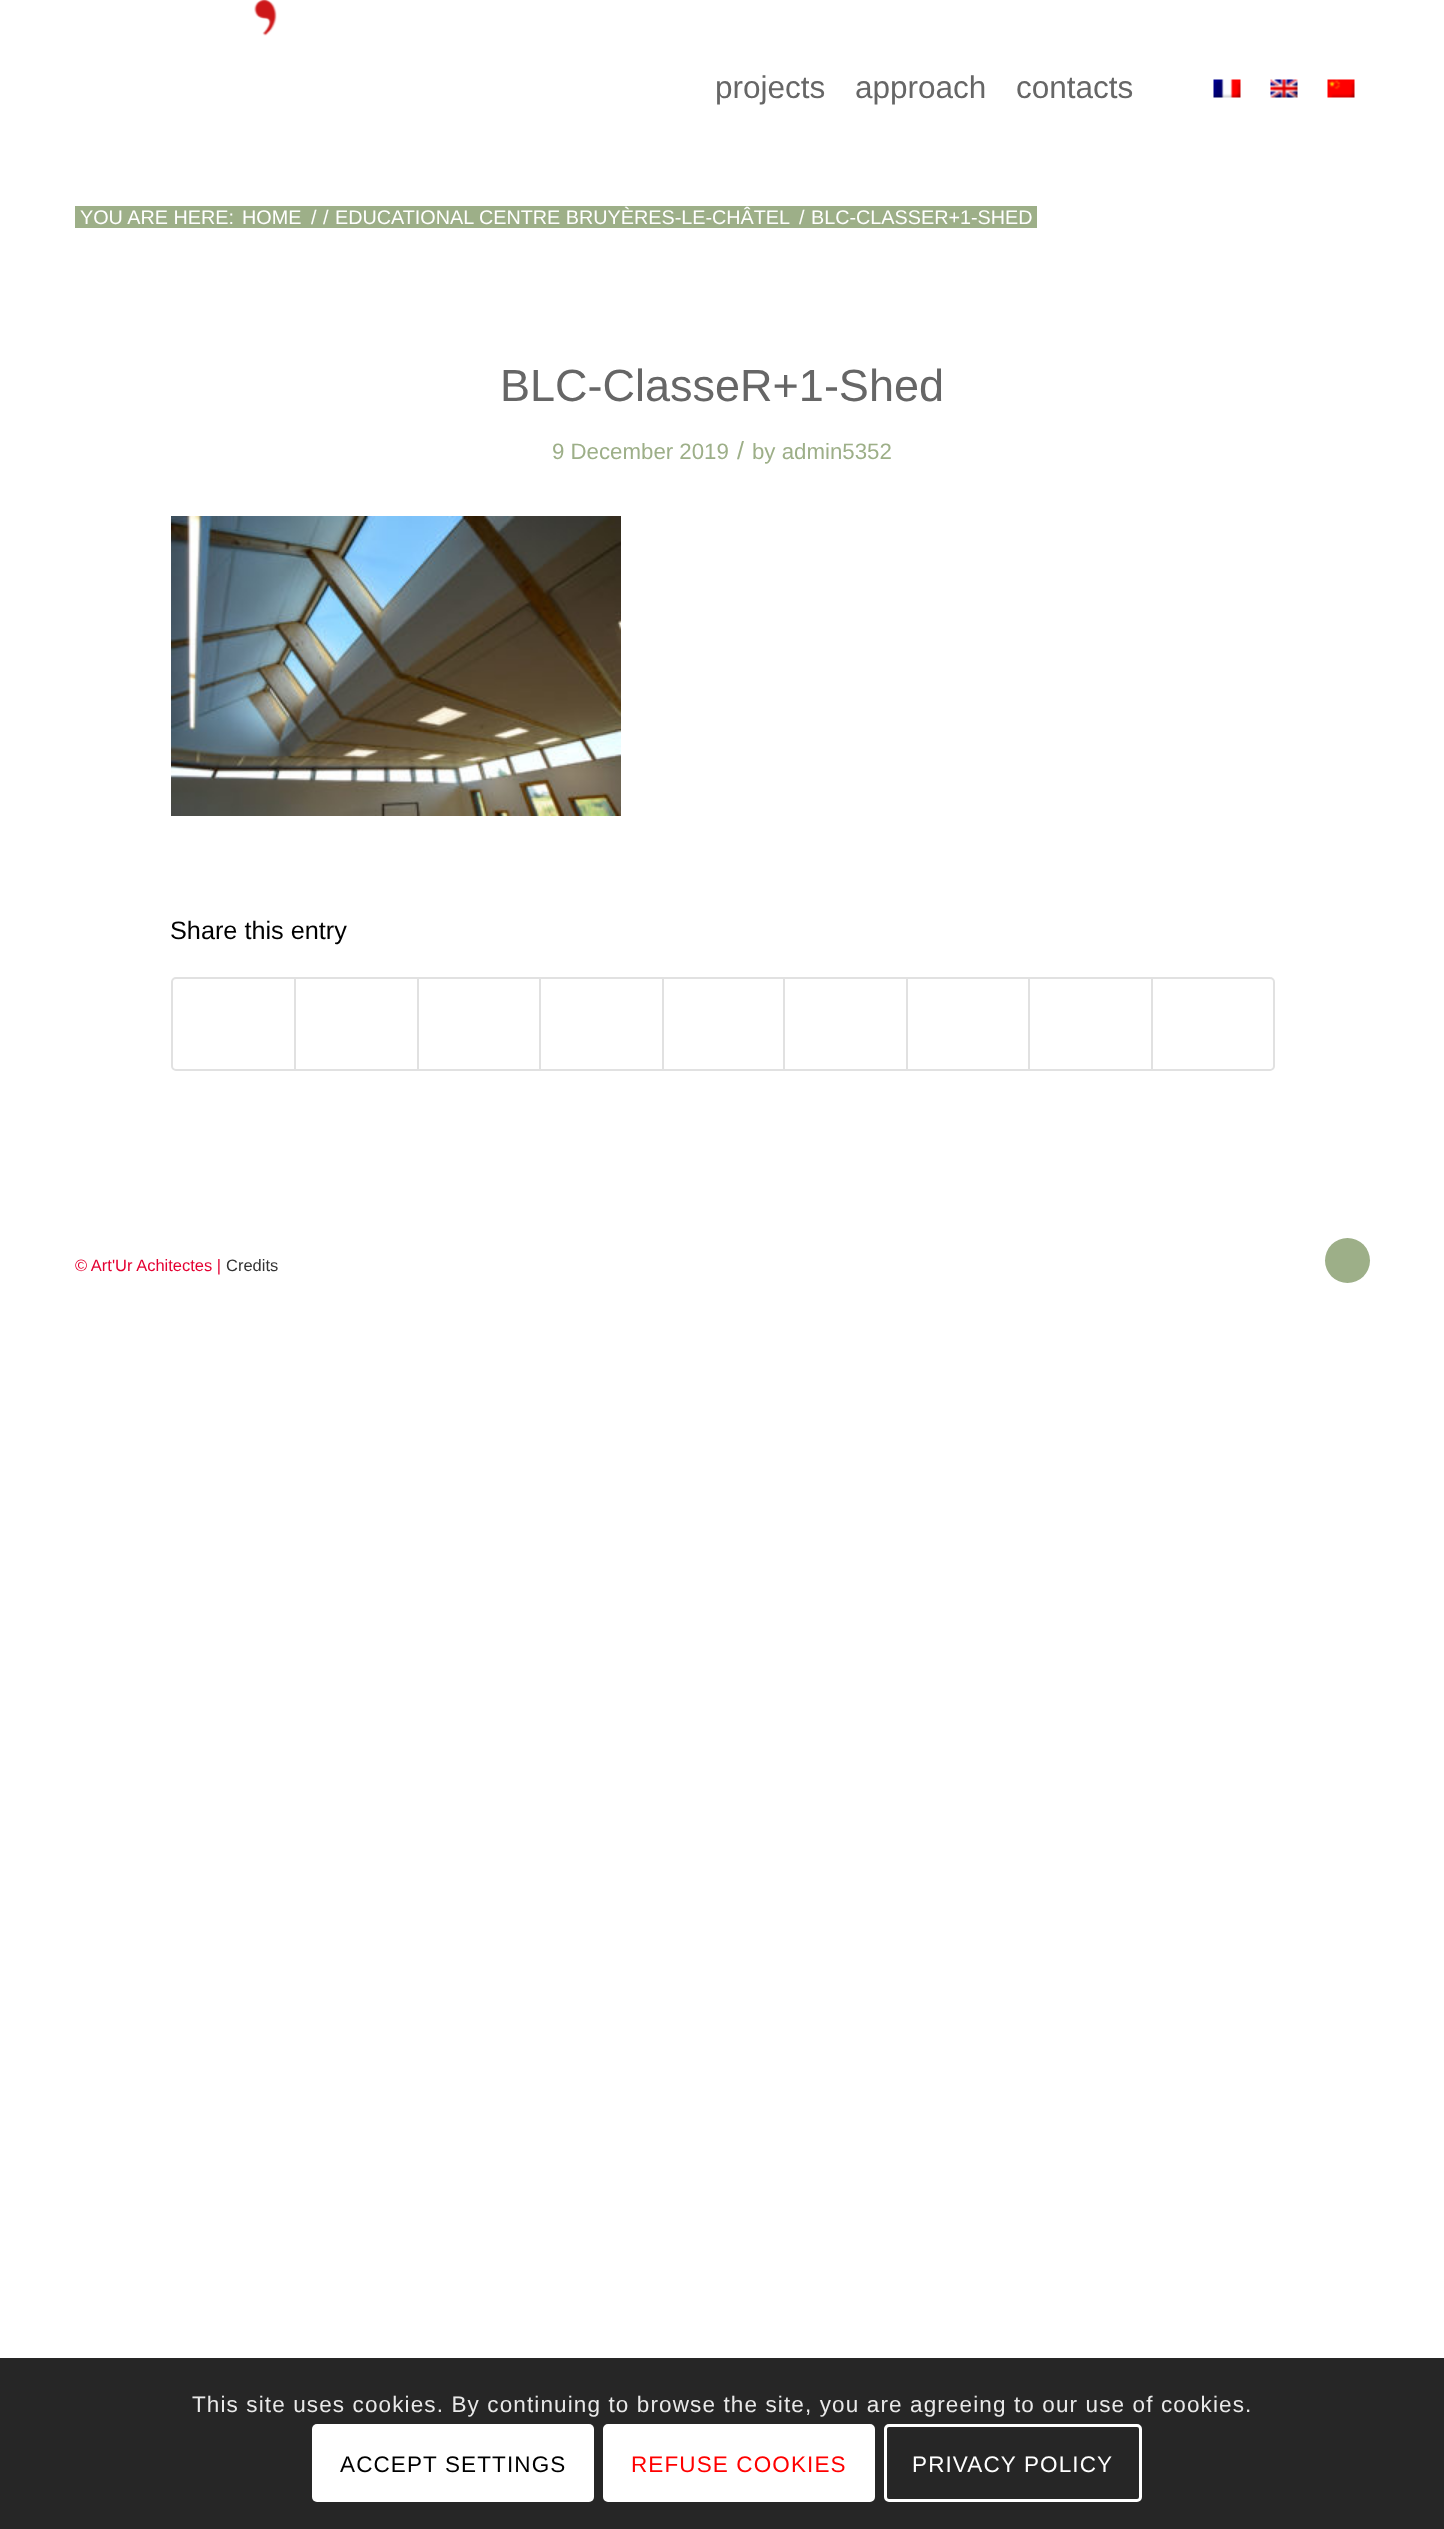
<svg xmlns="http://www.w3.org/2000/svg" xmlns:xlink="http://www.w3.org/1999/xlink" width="1444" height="2529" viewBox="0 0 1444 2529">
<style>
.cls-1{font:31.5px Liberation Sans;fill:#666666}
.cls-2{font:19.8px Liberation Sans;fill:#ffffff}
.cls-3{font:45px Liberation Sans;fill:#666666}
.cls-4{font:22.25px Liberation Sans;fill:#9daf88}
.cls-5{font:25px Liberation Sans;fill:#9daf88}
.cls-6{font:25.25px Liberation Sans;fill:#000000}
.cls-7{font:16.5px Liberation Sans;fill:#e40132}
.cls-8{font:16.5px Liberation Sans;fill:#333333}
.cls-9{font:22.5px Liberation Sans;letter-spacing:1.12px;fill:#e9e9e9}
.cls-10{font:22.5px Liberation Sans;letter-spacing:1.12px;fill:#000000}
.cls-11{font:22.5px Liberation Sans;letter-spacing:1.12px;fill:#ff0000}
.cls-12{font:22.5px Liberation Sans;letter-spacing:1.12px;fill:#ffffff}
</style>
<rect width="100%" height="100%" fill="#ffffff"/>
<image xlink:href="image0.png" x="254" y="0" width="23" height="36"/>
<image xlink:href="image1.png" x="1213" y="79" width="28" height="19"/>
<image xlink:href="image2.png" x="1270" y="79" width="28" height="19"/>
<image xlink:href="image3.png" x="1327" y="79" width="28" height="19"/>
<rect fill="#9daf88" x="75" y="206" width="243" height="22"/>
<rect fill="#9daf88" x="318" y="206" width="477" height="22"/>
<rect fill="#9daf88" x="795" y="206" width="242" height="22"/>
<image xlink:href="image4.png" x="171" y="516" width="450" height="300"/>
<rect fill="none" stroke="#e1e1e1" stroke-width="2" x="172" y="978" width="1102" height="92" rx="4"/>
<rect fill="#e1e1e1" x="294" y="978" width="2" height="92"/>
<rect fill="#e1e1e1" x="417" y="978" width="2" height="92"/>
<rect fill="#e1e1e1" x="539" y="978" width="2" height="92"/>
<rect fill="#e1e1e1" x="662" y="978" width="2" height="92"/>
<rect fill="#e1e1e1" x="783" y="978" width="2" height="92"/>
<rect fill="#e1e1e1" x="906" y="978" width="2" height="92"/>
<rect fill="#e1e1e1" x="1028" y="978" width="2" height="92"/>
<rect fill="#e1e1e1" x="1151" y="978" width="2" height="92"/>
<circle fill="#9daf88" cx="1347.5" cy="1260.5" r="22.5"/>
<rect fill="#262626" x="0" y="2358" width="1444" height="171"/>
<rect fill="#ffffff" x="312" y="2424" width="282" height="78" rx="5"/>
<rect fill="#ffffff" stroke="#ffffff" stroke-width="3" x="604.5" y="2425.5" width="269" height="75" rx="3.5"/>
<rect fill="none" stroke="#ffffff" stroke-width="3" x="885.5" y="2425.5" width="255" height="75" rx="3.5"/>
<text class="cls-1" x="715" y="98">projects</text>
<text class="cls-1" x="855" y="98">approach</text>
<text class="cls-1" x="1016" y="98">contacts</text>
<text class="cls-2" x="80" y="224">YOU ARE HERE:</text>
<text class="cls-2" x="242" y="224">HOME</text>
<text class="cls-2" x="311" y="224">/</text>
<text class="cls-2" x="323" y="224">/</text>
<text class="cls-2" x="335" y="224">EDUCATIONAL CENTRE BRUYÈRES-LE-CHÂTEL</text>
<text class="cls-2" x="799" y="224">/</text>
<text class="cls-2" x="811" y="224">BLC-CLASSER+1-SHED</text>
<text class="cls-3" x="500" y="401">BLC-ClasseR+1-Shed</text>
<text class="cls-4" x="552" y="459">9 December 2019</text>
<text class="cls-5" x="737" y="459">/</text>
<text class="cls-4" x="752" y="459">by admin5352</text>
<text class="cls-6" x="170" y="939">Share this entry</text>
<text class="cls-7" x="75" y="1271">© Art'Ur Achitectes |</text>
<text class="cls-8" x="226" y="1271">Credits</text>
<text class="cls-9" x="192" y="2412">This site uses cookies. By continuing to browse the site, you are agreeing to our use of cookies.</text>
<text class="cls-10" x="340" y="2472">ACCEPT SETTINGS</text>
<text class="cls-11" x="631" y="2472">REFUSE COOKIES</text>
<text class="cls-12" x="912" y="2472">PRIVACY POLICY</text>
</svg>
